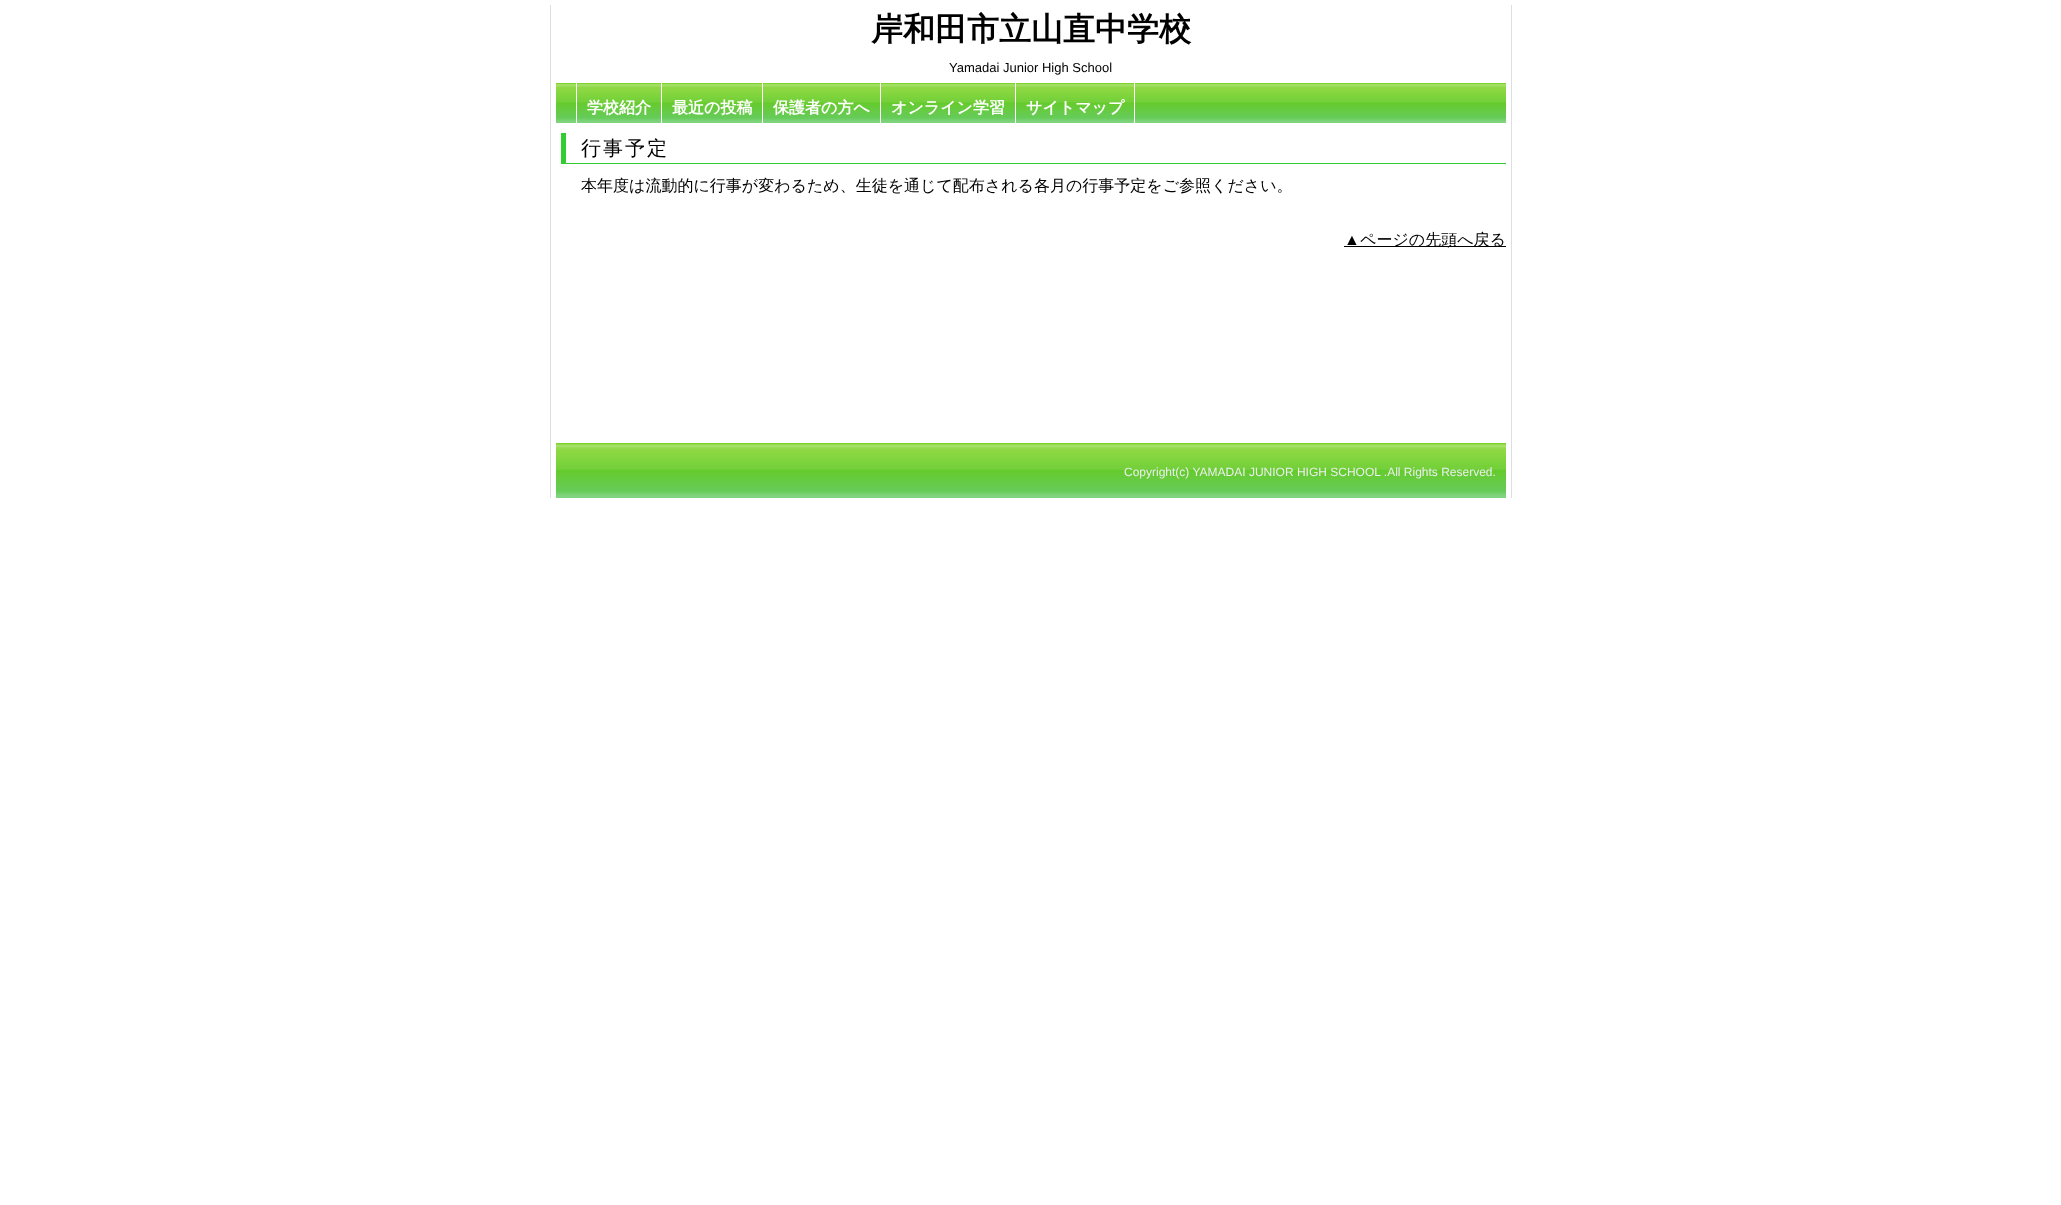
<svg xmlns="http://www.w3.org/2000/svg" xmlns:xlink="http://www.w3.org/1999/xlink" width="2061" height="1205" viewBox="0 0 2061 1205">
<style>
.cls-1{font:bold 32px WenQuanYi Zen Hei;fill:#000000}
.cls-2{font:13px Liberation Sans;fill:#000000}
.cls-3{font:bold 16px WenQuanYi Zen Hei;fill:#ffffff}
.cls-4{font:500 20px WenQuanYi Zen Hei;letter-spacing:2px;fill:#000000}
.cls-5{font:500 16px WenQuanYi Zen Hei;fill:#000000}
.cls-6{font:16px Liberation Sans;fill:#000000}
.cls-7{font:12px Liberation Sans;fill:#edeef0}
</style>
<rect width="100%" height="100%" fill="#ffffff"/>
<rect fill="#dedede" x="1511" y="5" width="1" height="493"/>
<rect fill="#dedede" x="550" y="5" width="1" height="493"/>
<image xlink:href="image0.png" x="556" y="83" width="950" height="40"/>
<rect fill="#ffffff" x="576" y="83" width="1" height="40"/>
<rect fill="#ffffff" x="661" y="83" width="1" height="40"/>
<rect fill="#ffffff" x="762" y="83" width="1" height="40"/>
<rect fill="#ffffff" x="880" y="83" width="1" height="40"/>
<rect fill="#ffffff" x="1015" y="83" width="1" height="40"/>
<rect fill="#ffffff" x="1134" y="83" width="1" height="40"/>
<rect fill="#32cd32" x="561" y="163" width="945" height="1"/>
<rect fill="#32cd32" x="561" y="133" width="5" height="31"/>
<rect fill="#000000" x="1344" y="246" width="162" height="1"/>
<image xlink:href="image1.png" x="556" y="443" width="950" height="55"/>
<text class="cls-1" x="871" y="40">岸和田市立山直中学校</text>
<text class="cls-2" x="949" y="72">Yamadai Junior High School</text>
<text class="cls-3" x="587" y="113">学校紹介</text>
<text class="cls-3" x="672" y="113">最近の投稿</text>
<text class="cls-3" x="773" y="113">保護者の方へ</text>
<text class="cls-3" x="891" y="113">オンライン学習</text>
<text class="cls-3" x="1026" y="113">サイトマップ</text>
<text class="cls-4" x="581" y="155">行事予定</text>
<text class="cls-5" x="581" y="191">本年度は流動的に行事が変わるため、生徒を通じて配布される各月の行事予定をご参照ください。</text>
<text class="cls-6" x="1344" y="245">▲</text>
<text class="cls-5" x="1360" y="245">ページの先頭へ戻る</text>
<text class="cls-7" x="1124" y="476">Copyright(c) YAMADAI JUNIOR HIGH SCHOOL .All Rights Reserved.</text>
</svg>
